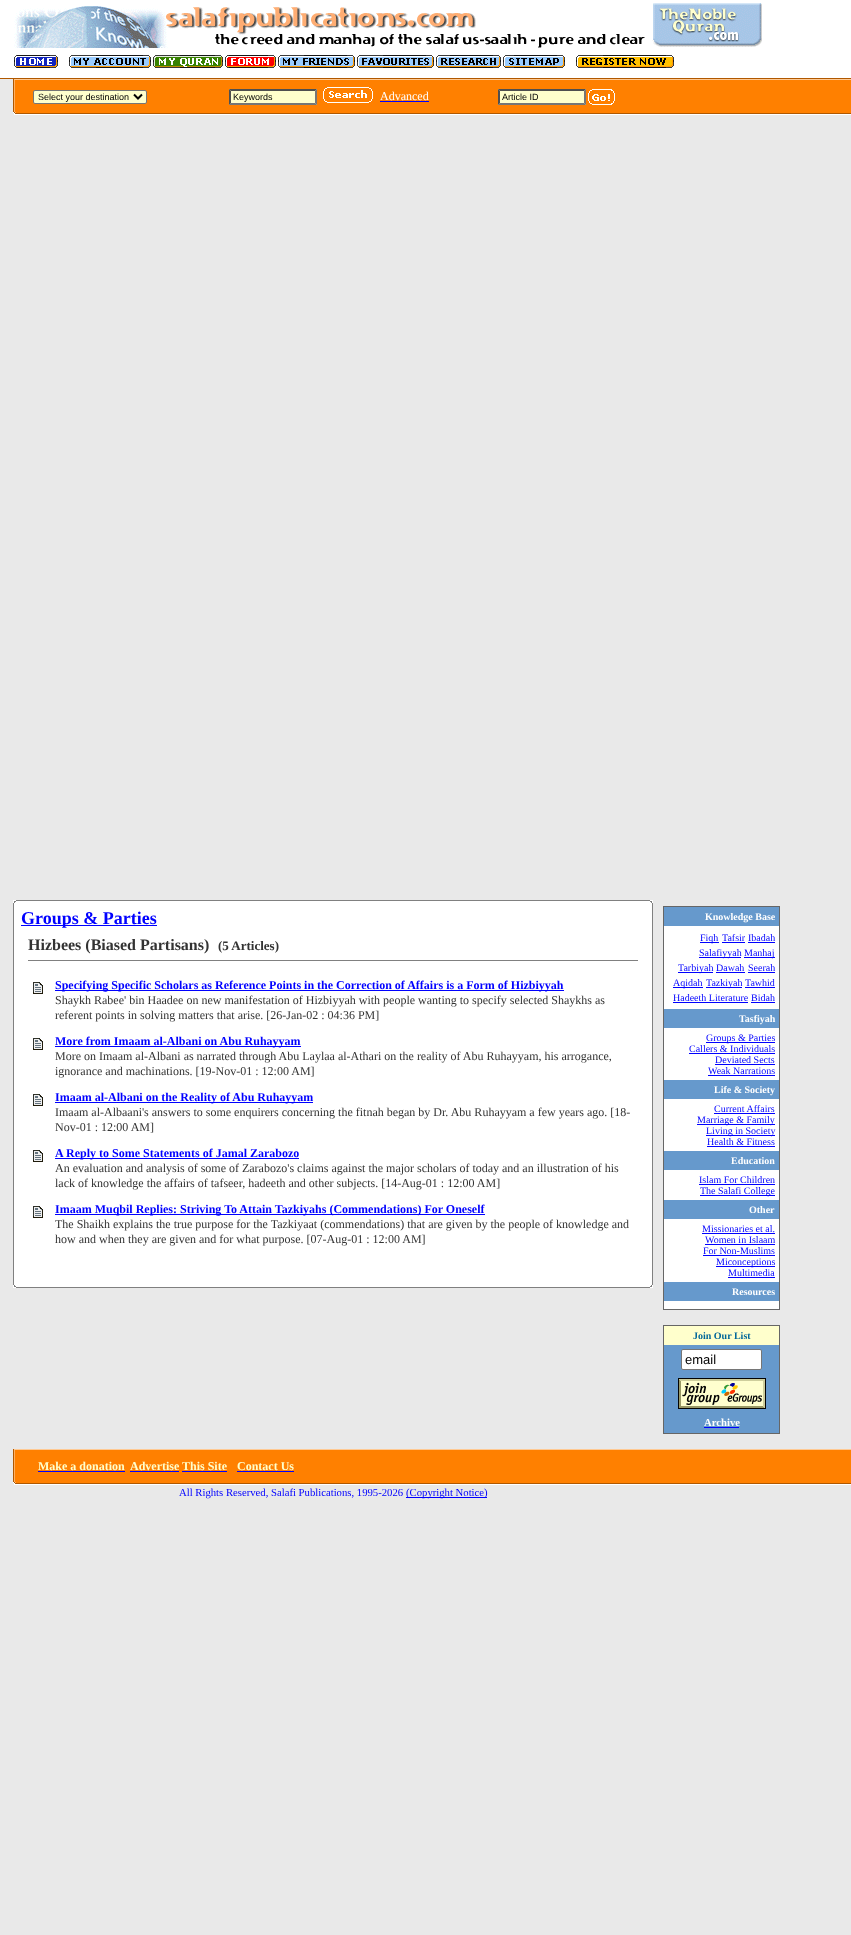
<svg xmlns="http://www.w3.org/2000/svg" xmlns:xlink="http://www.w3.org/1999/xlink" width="851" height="1935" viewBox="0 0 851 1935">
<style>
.cls-1{font:9px Liberation Sans;fill:#000000}
.cls-2{font:12px Liberation Serif;fill:#ffffff}
.cls-3{font:bold 18px Liberation Serif;fill:#0000ff}
.cls-4{font:bold 16px Liberation Serif;fill:#333333}
.cls-5{font:bold 13px Liberation Serif;fill:#333333}
.cls-6{font:bold 12px Liberation Serif;fill:#0000ff}
.cls-7{font:12px Liberation Serif;fill:#333333}
.cls-8{font:bold 10px Liberation Serif;fill:#ffffff}
.cls-9{font:10px Liberation Serif;fill:#0000ff}
.cls-10{font:bold 10px Liberation Serif;fill:#006699}
.cls-11{font:13px Liberation Sans;fill:#000000}
.cls-12{font:bold 10.7px Liberation Serif;fill:#ffffff}
.cls-13{font:bold 12px Liberation Serif;fill:#ffffcc}
.cls-14{font:10.7px Liberation Serif;fill:#0000ff}
</style>
<rect width="100%" height="100%" fill="#e9e9e9"/>
<rect fill="#ffffff" x="0" y="0" width="851" height="78"/>
<image xlink:href="image0.png" x="14" y="6" width="631" height="42"/>
<image xlink:href="image1.png" x="652" y="3" width="110" height="44"/>
<image xlink:href="image2.png" x="14" y="55" width="44" height="13"/>
<image xlink:href="image3.png" x="69" y="55" width="82" height="13"/>
<image xlink:href="image4.png" x="153" y="55" width="70" height="13"/>
<image xlink:href="image5.png" x="225" y="55" width="51" height="13"/>
<image xlink:href="image6.png" x="278" y="55" width="77" height="13"/>
<image xlink:href="image7.png" x="357" y="55" width="77" height="13"/>
<image xlink:href="image8.png" x="436" y="55" width="65" height="13"/>
<image xlink:href="image9.png" x="503" y="55" width="62" height="13"/>
<image xlink:href="image10.png" x="576" y="55" width="98" height="13"/>
<rect fill="#b05800" x="0" y="78" width="851" height="1"/>
<rect fill="#ffc992" x="14" y="79" width="837" height="1"/>
<image xlink:href="image11.png" x="0" y="79" width="14" height="1"/>
<rect fill="#ff8000" x="15" y="80" width="836" height="33"/>
<image xlink:href="image12.png" x="0" y="80" width="16" height="33"/>
<rect fill="#ffffcc" stroke="#767676" x="33.5" y="90.5" width="113" height="13" rx="1.5"/>
<path fill="none" stroke="#000000" stroke-width="2" d="M134 94.5L138 98.5L142 94.5"/>
<rect fill="#ffffcc" x="229" y="89" width="88" height="16"/>
<path fill="#4f4f4f" d="M229 89H317L315 91H231Z"/>
<path fill="#767676" d="M317 89V105L315 103V91Z"/>
<path fill="#767676" d="M317 105H229L231 103H315Z"/>
<path fill="#4f4f4f" d="M229 105V89L231 91V103Z"/>
<image xlink:href="image13.png" x="323" y="87" width="50" height="16"/>
<rect fill="#0000ff" x="380" y="101" width="49" height="1"/>
<rect fill="#ffffcc" x="498" y="89" width="88" height="16"/>
<path fill="#4f4f4f" d="M498 89H586L584 91H500Z"/>
<path fill="#767676" d="M586 89V105L584 103V91Z"/>
<path fill="#767676" d="M586 105H498L500 103H584Z"/>
<path fill="#4f4f4f" d="M498 105V89L500 91V103Z"/>
<image xlink:href="image14.png" x="588" y="89" width="27" height="16"/>
<rect fill="#b05800" x="15" y="113" width="836" height="1"/>
<image xlink:href="image15.png" x="0" y="113" width="15" height="1"/>
<rect fill="#ffffff" x="14" y="114" width="837" height="1"/>
<rect fill="#ffffff" x="14" y="901" width="638" height="386"/>
<image xlink:href="image16.png" x="13" y="900" width="8" height="8"/>
<rect fill="#808080" x="21" y="900" width="624" height="1"/>
<image xlink:href="image17.png" x="645" y="900" width="8" height="8"/>
<rect fill="#808080" x="13" y="908" width="1" height="372"/>
<rect fill="#0000ff" x="21" y="925" width="136" height="1"/>
<rect fill="#808080" x="28" y="960" width="610" height="1"/>
<image xlink:href="image18.png" x="33" y="982" width="10" height="12"/>
<rect fill="#0000ff" x="55" y="990" width="509" height="1"/>
<image xlink:href="image18.png" x="33" y="1038" width="10" height="12"/>
<rect fill="#0000ff" x="55" y="1046" width="246" height="1"/>
<image xlink:href="image18.png" x="33" y="1094" width="10" height="12"/>
<rect fill="#0000ff" x="55" y="1102" width="258" height="1"/>
<image xlink:href="image18.png" x="33" y="1150" width="10" height="12"/>
<rect fill="#0000ff" x="55" y="1158" width="244" height="1"/>
<image xlink:href="image18.png" x="33" y="1206" width="10" height="12"/>
<rect fill="#0000ff" x="55" y="1214" width="430" height="1"/>
<rect fill="#808080" x="652" y="908" width="1" height="372"/>
<image xlink:href="image19.png" x="13" y="1280" width="8" height="8"/>
<rect fill="#808080" x="21" y="1287" width="624" height="1"/>
<image xlink:href="image20.png" x="645" y="1280" width="8" height="8"/>
<rect fill="#666666" x="663" y="906" width="117" height="404"/>
<rect fill="#ffffff" x="664" y="926" width="115" height="383"/>
<rect fill="#6699cc" x="664" y="907" width="115" height="19"/>
<rect fill="#0000ff" x="700" y="942" width="19" height="1"/>
<rect fill="#0000ff" x="722" y="942" width="23" height="1"/>
<rect fill="#0000ff" x="748" y="942" width="27" height="1"/>
<rect fill="#0000ff" x="699" y="957" width="42" height="1"/>
<rect fill="#0000ff" x="744" y="957" width="31" height="1"/>
<rect fill="#0000ff" x="678" y="972" width="35" height="1"/>
<rect fill="#0000ff" x="716" y="972" width="29" height="1"/>
<rect fill="#0000ff" x="748" y="972" width="27" height="1"/>
<rect fill="#0000ff" x="673" y="987" width="30" height="1"/>
<rect fill="#0000ff" x="706" y="987" width="36" height="1"/>
<rect fill="#0000ff" x="745" y="987" width="30" height="1"/>
<rect fill="#0000ff" x="673" y="1002" width="75" height="1"/>
<rect fill="#0000ff" x="751" y="1002" width="24" height="1"/>
<rect fill="#6699cc" x="664" y="1009" width="115" height="19"/>
<rect fill="#0000ff" x="706" y="1042" width="69" height="1"/>
<rect fill="#0000ff" x="689" y="1053" width="86" height="1"/>
<rect fill="#0000ff" x="715" y="1064" width="60" height="1"/>
<rect fill="#0000ff" x="708" y="1075" width="67" height="1"/>
<rect fill="#6699cc" x="664" y="1080" width="115" height="19"/>
<rect fill="#0000ff" x="714" y="1113" width="61" height="1"/>
<rect fill="#0000ff" x="697" y="1124" width="78" height="1"/>
<rect fill="#0000ff" x="706" y="1135" width="69" height="1"/>
<rect fill="#0000ff" x="707" y="1146" width="68" height="1"/>
<rect fill="#6699cc" x="664" y="1151" width="115" height="19"/>
<rect fill="#0000ff" x="699" y="1184" width="76" height="1"/>
<rect fill="#0000ff" x="700" y="1195" width="75" height="1"/>
<rect fill="#6699cc" x="664" y="1200" width="115" height="19"/>
<rect fill="#0000ff" x="702" y="1233" width="73" height="1"/>
<rect fill="#0000ff" x="705" y="1244" width="70" height="1"/>
<rect fill="#0000ff" x="703" y="1255" width="72" height="1"/>
<rect fill="#0000ff" x="716" y="1266" width="59" height="1"/>
<rect fill="#0000ff" x="728" y="1277" width="47" height="1"/>
<rect fill="#6699cc" x="664" y="1282" width="115" height="19"/>
<rect fill="#666666" x="663" y="1325" width="117" height="109"/>
<rect fill="#6699cc" x="664" y="1345" width="115" height="88"/>
<rect fill="#ffffcc" x="664" y="1326" width="115" height="19"/>
<rect fill="#ffffff" stroke="#767676" x="681.5" y="1349.5" width="80" height="20" rx="1.5"/>
<image xlink:href="image21.png" x="678" y="1378" width="88" height="31"/>
<rect fill="#0000ff" x="704" y="1427" width="35" height="1"/>
<rect fill="#ffc992" x="14" y="1449" width="837" height="1"/>
<image xlink:href="image11.png" x="0" y="1449" width="14" height="1"/>
<rect fill="#ff8000" x="16" y="1450" width="835" height="33"/>
<image xlink:href="image22.png" x="0" y="1450" width="16" height="33"/>
<rect fill="#0000ff" x="38" y="1471" width="87" height="1"/>
<rect fill="#0000ff" x="130" y="1471" width="49" height="1"/>
<rect fill="#0000ff" x="182" y="1471" width="45" height="1"/>
<rect fill="#0000ff" x="237" y="1471" width="57" height="1"/>
<rect fill="#b05800" x="15" y="1483" width="836" height="1"/>
<image xlink:href="image15.png" x="0" y="1483" width="15" height="1"/>
<rect fill="#ffffff" x="14" y="1484" width="837" height="1"/>
<rect fill="#0000ff" x="406" y="1497" width="81" height="1"/>
<text class="cls-1" x="38" y="100">Select your destination</text>
<text class="cls-1" x="233" y="100">Keywords</text>
<text class="cls-2" x="380" y="100">Advanced</text>
<text class="cls-1" x="502" y="100">Article ID</text>
<text class="cls-3" x="21" y="924">Groups &amp; Parties</text>
<text class="cls-4" x="28" y="950">Hizbees (Biased Partisans)</text>
<text class="cls-5" x="218" y="950">(5 Articles)</text>
<text class="cls-6" x="55" y="989">Specifying Specific Scholars as Reference Points in the Correction of Affairs is a Form of Hizbiyyah</text>
<text class="cls-7"><tspan x="55" y="1004">Shaykh Rabee' bin Haadee on new manifestation of Hizbiyyah with people wanting to specify selected Shaykhs as</tspan><tspan x="55" y="1019">referent points in solving matters that arise. [26-Jan-02 : 04:36 PM]</tspan></text>
<text class="cls-6" x="55" y="1045">More from Imaam al-Albani on Abu Ruhayyam</text>
<text class="cls-7"><tspan x="55" y="1060">More on Imaam al-Albani as narrated through Abu Laylaa al-Athari on the reality of Abu Ruhayyam, his arrogance,</tspan><tspan x="55" y="1075">ignorance and machinations. [19-Nov-01 : 12:00 AM]</tspan></text>
<text class="cls-6" x="55" y="1101">Imaam al-Albani on the Reality of Abu Ruhayyam</text>
<text class="cls-7"><tspan x="55" y="1116">Imaam al-Albaani's answers to some enquirers concerning the fitnah began by Dr. Abu Ruhayyam a few years ago. [18-</tspan><tspan x="55" y="1131">Nov-01 : 12:00 AM]</tspan></text>
<text class="cls-6" x="55" y="1157">A Reply to Some Statements of Jamal Zarabozo</text>
<text class="cls-7"><tspan x="55" y="1172">An evaluation and analysis of some of Zarabozo's claims against the major scholars of today and an illustration of his</tspan><tspan x="55" y="1187">lack of knowledge the affairs of tafseer, hadeeth and other subjects. [14-Aug-01 : 12:00 AM]</tspan></text>
<text class="cls-6" x="55" y="1213">Imaam Muqbil Replies: Striving To Attain Tazkiyahs (Commendations) For Oneself</text>
<text class="cls-7"><tspan x="55" y="1228">The Shaikh explains the true purpose for the Tazkiyaat (commendations) that are given by the people of knowledge and</tspan><tspan x="55" y="1243">how and when they are given and for what purpose. [07-Aug-01 : 12:00 AM]</tspan></text>
<text class="cls-8" x="705" y="920">Knowledge Base</text>
<text class="cls-9" x="700" y="941">Fiqh</text>
<text class="cls-9" x="722" y="941">Tafsir</text>
<text class="cls-9" x="748" y="941">Ibadah</text>
<text class="cls-9" x="699" y="956">Salafiyyah</text>
<text class="cls-9" x="744" y="956">Manhaj</text>
<text class="cls-9" x="678" y="971">Tarbiyah</text>
<text class="cls-9" x="716" y="971">Dawah</text>
<text class="cls-9" x="748" y="971">Seerah</text>
<text class="cls-9" x="673" y="986">Aqidah</text>
<text class="cls-9" x="706" y="986">Tazkiyah</text>
<text class="cls-9" x="745" y="986">Tawhid</text>
<text class="cls-9" x="673" y="1001">Hadeeth Literature</text>
<text class="cls-9" x="751" y="1001">Bidah</text>
<text class="cls-8" x="739" y="1022">Tasfiyah</text>
<text class="cls-9" x="706" y="1041">Groups &amp; Parties</text>
<text class="cls-9" x="689" y="1052">Callers &amp; Individuals</text>
<text class="cls-9" x="715" y="1063">Deviated Sects</text>
<text class="cls-9" x="708" y="1074">Weak Narrations</text>
<text class="cls-8" x="714" y="1093">Life &amp; Society</text>
<text class="cls-9" x="714" y="1112">Current Affairs</text>
<text class="cls-9" x="697" y="1123">Marriage &amp; Family</text>
<text class="cls-9" x="706" y="1134">Living in Society</text>
<text class="cls-9" x="707" y="1145">Health &amp; Fitness</text>
<text class="cls-8" x="731" y="1164">Education</text>
<text class="cls-9" x="699" y="1183">Islam For Children</text>
<text class="cls-9" x="700" y="1194">The Salafi College</text>
<text class="cls-8" x="749" y="1213">Other</text>
<text class="cls-9" x="702" y="1232">Missionaries et al.</text>
<text class="cls-9" x="705" y="1243">Women in Islaam</text>
<text class="cls-9" x="703" y="1254">For Non-Muslims</text>
<text class="cls-9" x="716" y="1265">Miconceptions</text>
<text class="cls-9" x="728" y="1276">Multimedia</text>
<text class="cls-8" x="732" y="1295">Resources</text>
<text class="cls-10" x="693" y="1339">Join Our List</text>
<text class="cls-11" x="685" y="1364">email</text>
<text class="cls-12" x="704" y="1426">Archive</text>
<text class="cls-13" x="38" y="1470">Make a donation</text>
<text class="cls-13" x="130" y="1470">Advertise</text>
<text class="cls-13" x="182" y="1470">This Site</text>
<text class="cls-13" x="237" y="1470">Contact Us</text>
<text class="cls-14" x="179" y="1496">All Rights Reserved, Salafi Publications, 1995-2026</text>
<text class="cls-14" x="406" y="1496">(Copyright Notice)</text>
</svg>
